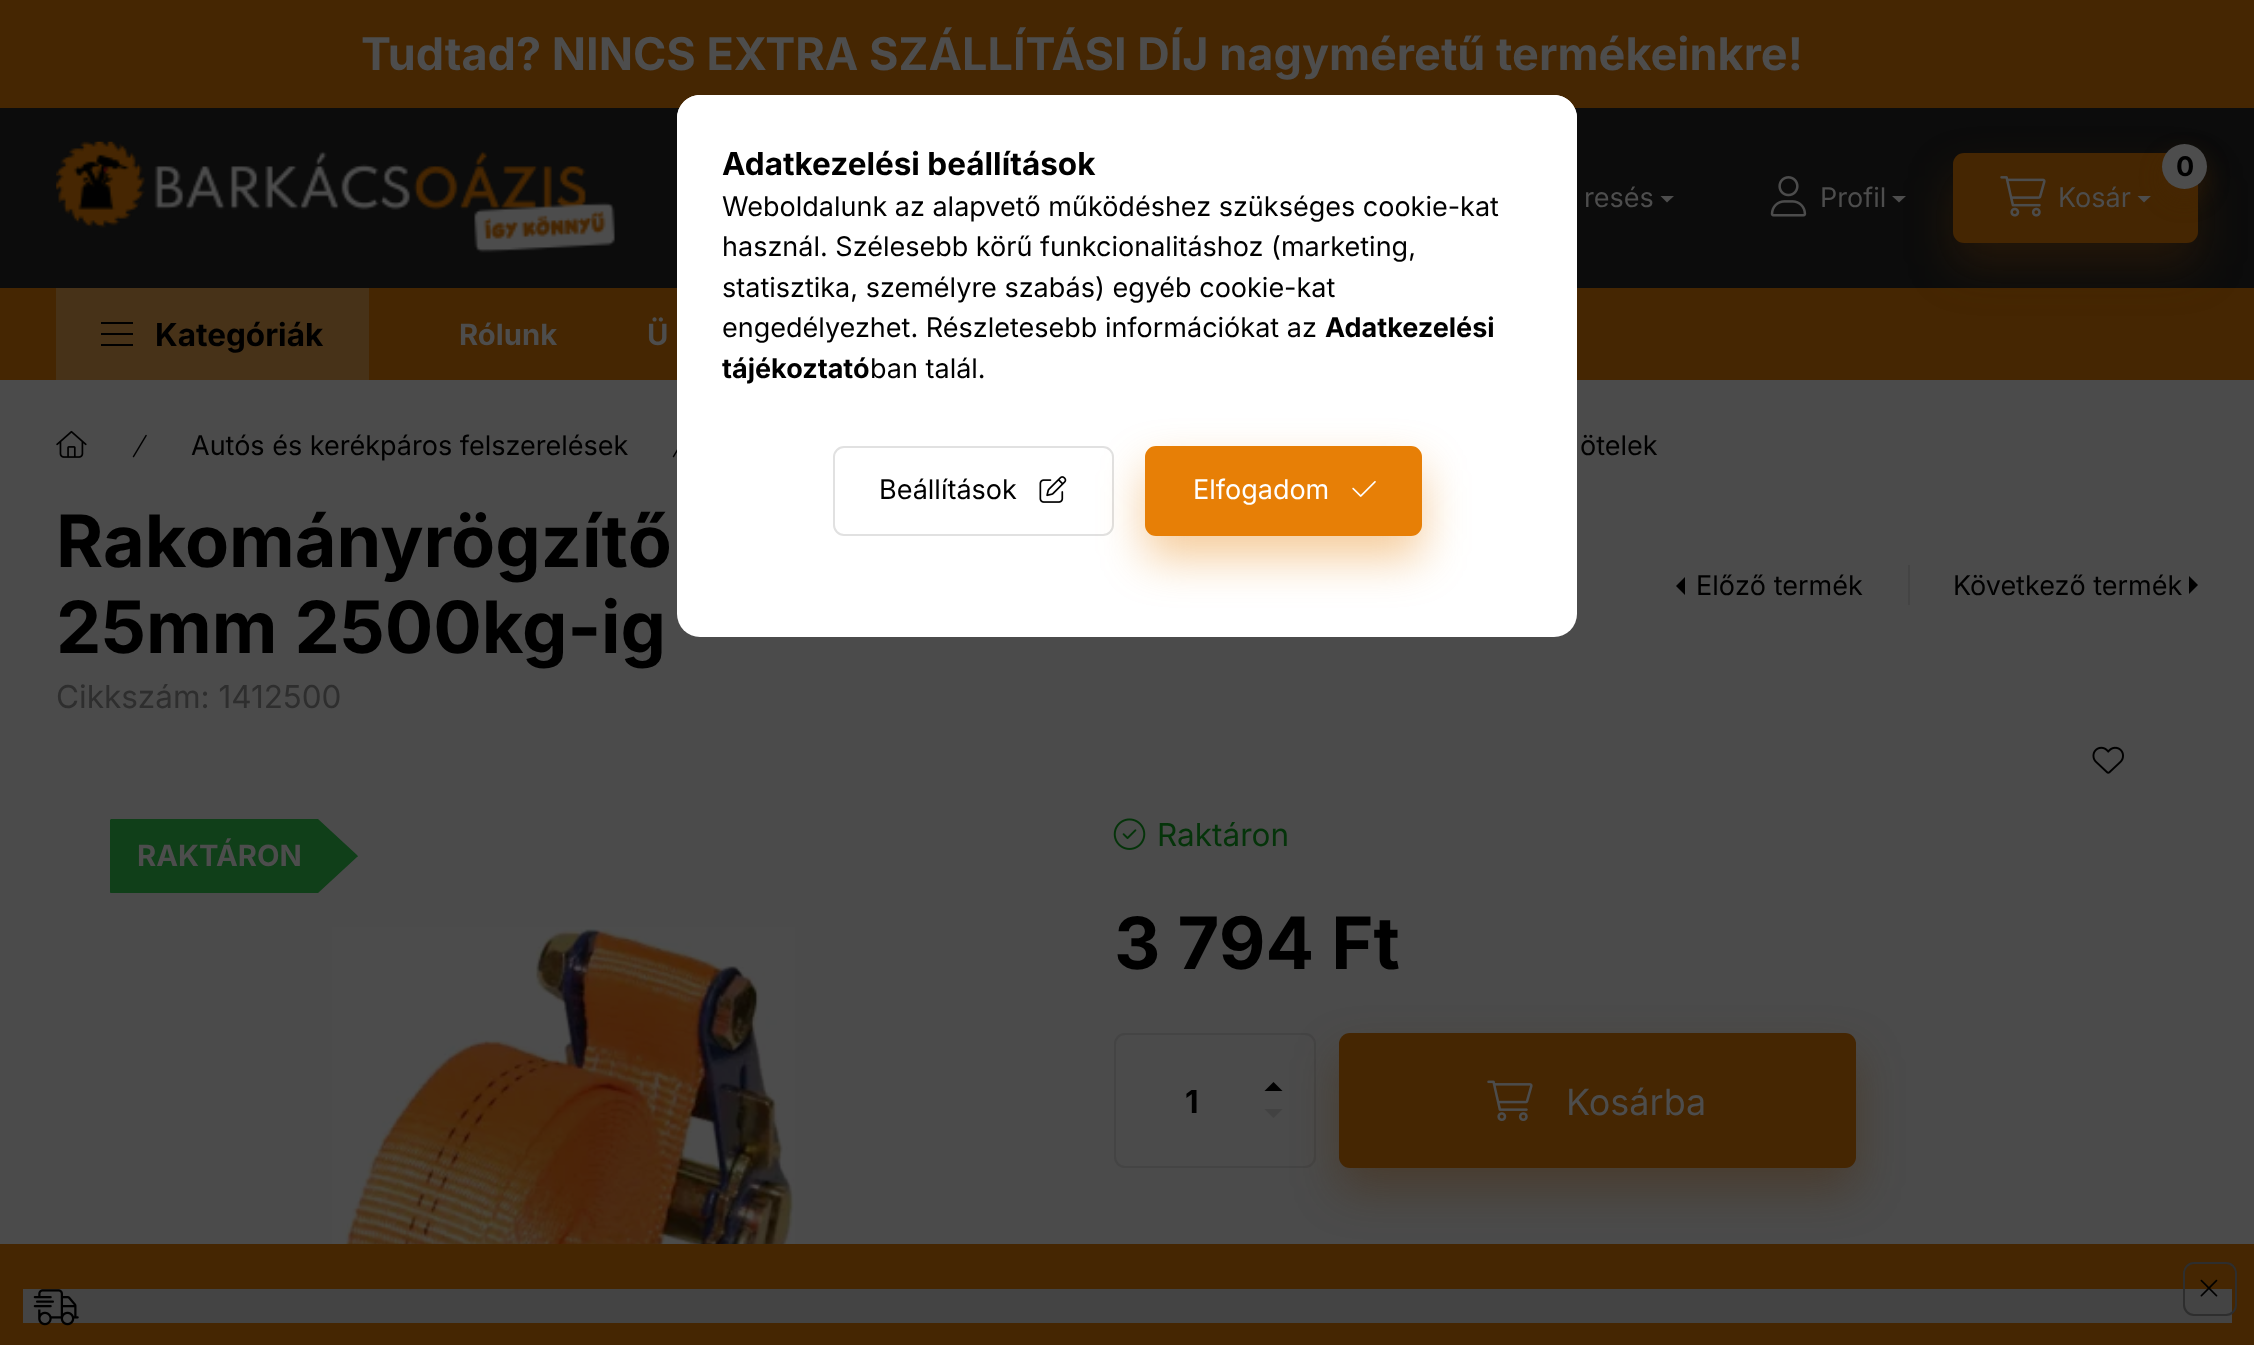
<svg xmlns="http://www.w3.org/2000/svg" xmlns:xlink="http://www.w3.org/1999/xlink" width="2254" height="1345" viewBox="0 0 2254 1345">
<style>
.cls-1{font:bold 45px Inter;fill:#4d4d4d}
.cls-2{font:27px Inter;fill:#4d4d4d}
.cls-3{font:bold 27px Inter;fill:#000000}
.cls-4{font:bold 31.5px Inter;fill:#000000}
.cls-5{font:bold 29.25px Inter;fill:#4d4d4d}
.cls-6{font:27px Inter;fill:#000000}
.cls-7{font:bold 72px Inter;fill:#000000}
.cls-8{font:31.5px Inter;fill:#2e2e2e}
.cls-9{font:31.5px Inter;fill:#05340a}
.cls-10{font:36px Inter;fill:#4d4d4d}
.cls-11{font:27px Inter;fill:#ffffff}
</style>
<rect width="100%" height="100%" fill="#4b4b4b"/>
<rect fill="#0c0c0c" x="0" y="108" width="2254" height="180"/>
<rect fill="#452602" x="0" y="288" width="2254" height="92"/>
<rect fill="#452602" fill-opacity="0.4" filter="blur(22.5px)" x="1953" y="176" width="245" height="90" rx="11"/>
<rect fill="#452602" x="0" y="0" width="2254" height="108"/>
<image xlink:href="image0.png" x="56" y="141" width="559" height="112"/>
<path fill="#4d4d4d" d="M1660.5 196H1674L1667 202.5Z"/>
<image xlink:href="image1.png" x="1770" y="176" width="37" height="41"/>
<path fill="#4d4d4d" d="M1892 196H1906L1899 202.5Z"/>
<rect fill="#452602" x="1953" y="153" width="245" height="90" rx="11"/>
<rect fill="#452602" fill-opacity="0.4" filter="blur(11px)" x="2162" y="155" width="45" height="45" rx="22.5"/>
<circle fill="#4d4d4d" cx="2184.5" cy="166.5" r="22.5"/>
<image xlink:href="image2.png" x="2000" y="176" width="46" height="41"/>
<path fill="#4d4d4d" d="M2137.5 196H2151L2144 202.5Z"/>
<rect fill="#473218" x="56" y="288" width="313" height="92"/>
<rect fill="#000000" x="101" y="322" width="32" height="2"/>
<rect fill="#000000" x="101" y="333" width="32" height="2"/>
<rect fill="#000000" x="101" y="344" width="32" height="2"/>
<image xlink:href="image3.png" x="56" y="430" width="31" height="28"/>
<image xlink:href="image4.png" x="132" y="434" width="15" height="24"/>
<image xlink:href="image5.png" x="672" y="449" width="5" height="9"/>
<path fill="#000000" d="M1685 595V577L1676 586Z"/>
<rect fill="#444444" x="1908" y="565" width="2" height="40"/>
<path fill="#000000" d="M2189 594V576L2198 585Z"/>
<image xlink:href="image6.png" x="2092" y="746" width="32" height="28"/>
<path fill="#103f19" d="M110 820C110 820 111 819 111 819H318L357 855C358 856 358 857 357 857L318 893H111C111 893 110 893 110 892Z"/>
<image xlink:href="image7.png" x="332" y="927" width="463" height="317"/>
<image xlink:href="image8.png" x="1113" y="818" width="33" height="32"/>
<rect fill="none" stroke="#444444" stroke-width="2" x="1115" y="1034" width="200" height="133" rx="10"/>
<path fill="#000000" d="M1282.5 1091H1264.5L1273.5 1082Z"/>
<path fill="#424242" d="M1264.5 1109H1282.5L1273.5 1118Z"/>
<rect fill="#452602" fill-opacity="0.4" filter="blur(22.5px)" x="1339" y="1055" width="517" height="135" rx="11"/>
<rect fill="#452602" x="1339" y="1033" width="517" height="135" rx="11"/>
<image xlink:href="image9.png" x="1487" y="1080" width="46" height="42"/>
<rect fill="#ffffff" x="677" y="95" width="900" height="542" rx="23"/>
<path fill="#ffffff" d="M700 95H1554C1566.5 95 1577 105.5 1577 118V592H677V118C677 105.5 687.5 95 700 95Z"/>
<rect fill="none" stroke="#e1e1e1" stroke-width="2" x="834" y="447" width="279" height="88" rx="10"/>
<image xlink:href="image10.png" x="1039" y="476" width="28" height="27"/>
<rect fill="#e77f06" fill-opacity="0.4" filter="blur(22.5px)" x="1145" y="468" width="277" height="90" rx="11"/>
<rect fill="#e77f06" stroke="#e77f06" stroke-width="2" x="1146" y="447" width="275" height="88" rx="10"/>
<image xlink:href="image11.png" x="1352" y="481" width="24" height="16"/>
<rect fill="#452602" x="0" y="1244" width="2254" height="101"/>
<rect fill="#444444" x="23" y="1289" width="2209" height="34"/>
<rect fill="none" stroke="#2e2e2e" stroke-width="2" x="2184" y="1263" width="52" height="52" rx="10"/>
<image xlink:href="image12.png" x="2200" y="1279" width="18" height="18"/>
<image xlink:href="image13.png" x="33" y="1289" width="46" height="37"/>
<text class="cls-1" x="361" y="70">Tudtad? NINCS EXTRA SZÁLLÍTÁSI DÍJ nagyméretű termékeinkre!</text>
<text class="cls-2" x="1584" y="207">resés</text>
<text class="cls-2" x="1820" y="207">Profil</text>
<text class="cls-3" x="2176" y="176">0</text>
<text class="cls-2" x="2058" y="207">Kosár</text>
<text class="cls-4" x="155" y="346">Kategóriák</text>
<text class="cls-5" x="459" y="345">Rólunk</text>
<text class="cls-5" x="647" y="345">Ü</text>
<text class="cls-6" x="191" y="455">Autós és kerékpáros felszerelések</text>
<text class="cls-6" x="1580" y="455">ötelek</text>
<text class="cls-7"><tspan x="56" y="567">Rakományrögzítő</tspan><tspan x="56" y="653">25mm 2500kg-ig</tspan></text>
<text class="cls-6" x="1696" y="595">Előző termék</text>
<text class="cls-6" x="1953" y="595">Következő termék</text>
<text class="cls-8" x="56" y="708">Cikkszám: 1412500</text>
<text class="cls-5" x="137" y="866">RAKTÁRON</text>
<text class="cls-9" x="1157" y="846">Raktáron</text>
<text class="cls-7" x="1114" y="969">3 794 Ft</text>
<text class="cls-4" x="1185" y="1113">1</text>
<text class="cls-10" x="1566" y="1115">Kosárba</text>
<text class="cls-4" x="722" y="175">Adatkezelési beállítások</text>
<text class="cls-6"><tspan x="722" y="216">Weboldalunk az alapvető működéshez szükséges cookie-kat</tspan><tspan x="722" y="256">használ. Szélesebb körű funkcionalitáshoz (marketing,</tspan><tspan x="722" y="297">statisztika, személyre szabás) egyéb cookie-kat</tspan><tspan x="722" y="337">engedélyezhet. Részletesebb információkat az</tspan></text>
<text class="cls-3" x="1325" y="337">Adatkezelési</text>
<text class="cls-3" x="722" y="378">tájékoztató</text>
<text class="cls-6" x="870" y="378">ban talál.</text>
<text class="cls-6" x="879" y="499">Beállítások</text>
<text class="cls-11" x="1193" y="499">Elfogadom</text>
</svg>
